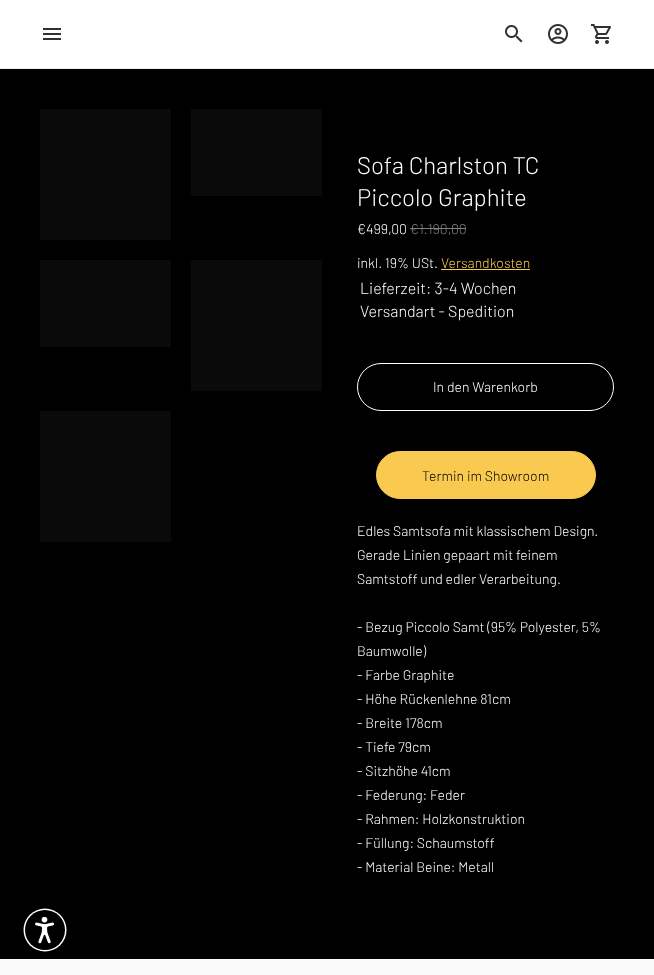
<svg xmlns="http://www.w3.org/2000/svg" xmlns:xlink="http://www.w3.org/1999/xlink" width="654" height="975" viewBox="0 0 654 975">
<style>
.cls-1{font:300 24px Barlow;fill:#ffffff}
.cls-2{font:300 14px Barlow;fill:#ffffff}
.cls-3{font:300 14px Barlow;fill:#808080}
.cls-4{font:300 14px Barlow;fill:#f9ca4f}
.cls-5{font:300 16px Barlow;fill:#ffffff}
.cls-6{font:300 14px Barlow;fill:#000000}
</style>
<rect width="100%" height="100%" fill="#000000"/>
<rect fill="#ffffff" x="0" y="0" width="654" height="68"/>
<rect fill="#eaeaea" x="0" y="68" width="654" height="1"/>
<image xlink:href="image0.png" x="43" y="28" width="18" height="12"/>
<image xlink:href="image1.png" x="505" y="25" width="18" height="18"/>
<image xlink:href="image2.png" x="548" y="24" width="20" height="20"/>
<image xlink:href="image3.png" x="591" y="24" width="20" height="20"/>
<rect fill="#0a0a0a" x="40" y="109" width="131" height="131"/>
<rect fill="#0a0a0a" x="191" y="109" width="131" height="87"/>
<rect fill="#0a0a0a" x="40" y="260" width="131" height="87"/>
<rect fill="#0a0a0a" x="191" y="260" width="131" height="131"/>
<rect fill="#0a0a0a" x="40" y="411" width="131" height="131"/>
<rect fill="#808080" x="410" y="228" width="56" height="1"/>
<rect fill="#f9ca4f" x="441" y="269" width="89" height="1"/>
<rect fill="none" stroke="#ffffff" x="357.5" y="363.5" width="256" height="47" rx="23.5"/>
<rect fill="#f9ca4f" stroke="#f9ca4f" x="376.5" y="451.5" width="219" height="47" rx="23.5"/>
<rect fill="#fafafa" x="0" y="959" width="654" height="16"/>
<circle fill="#ffffff" cx="45" cy="930" r="21.5"/>
<circle fill="#000000" cx="45" cy="930" r="20"/>
<image xlink:href="image4.png" x="35" y="917" width="19" height="27"/>
<text class="cls-1"><tspan x="357" y="174">Sofa Charlston TC</tspan><tspan x="357" y="206">Piccolo Graphite</tspan></text>
<text class="cls-2" x="357" y="234">€499,00</text>
<text class="cls-3" x="410" y="234">€1.190,00</text>
<text class="cls-2" x="357" y="268">inkl. 19% USt.</text>
<text class="cls-4" x="441" y="268">Versandkosten</text>
<text class="cls-5"><tspan x="360" y="294">Lieferzeit: 3-4 Wochen</tspan><tspan x="360" y="317">Versandart - Spedition</tspan></text>
<text class="cls-2" x="433" y="392">In den Warenkorb</text>
<text class="cls-6" x="422" y="481">Termin im Showroom</text>
<text class="cls-2"><tspan x="357" y="536">Edles Samtsofa mit klassischem Design.</tspan><tspan x="357" y="560">Gerade Linien gepaart mit feinem</tspan><tspan x="357" y="584">Samtstoff und edler Verarbeitung.</tspan></text>
<text class="cls-2"><tspan x="357" y="632">- Bezug Piccolo Samt (95% Polyester, 5%</tspan><tspan x="357" y="656">Baumwolle)</tspan><tspan x="357" y="680">- Farbe Graphite</tspan><tspan x="357" y="704">- Höhe Rückenlehne 81cm</tspan><tspan x="357" y="728">- Breite 178cm</tspan><tspan x="357" y="752">- Tiefe 79cm</tspan><tspan x="357" y="776">- Sitzhöhe 41cm</tspan><tspan x="357" y="800">- Federung: Feder</tspan><tspan x="357" y="824">- Rahmen: Holzkonstruktion</tspan><tspan x="357" y="848">- Füllung: Schaumstoff</tspan><tspan x="357" y="872">- Material Beine: Metall</tspan></text>
</svg>
